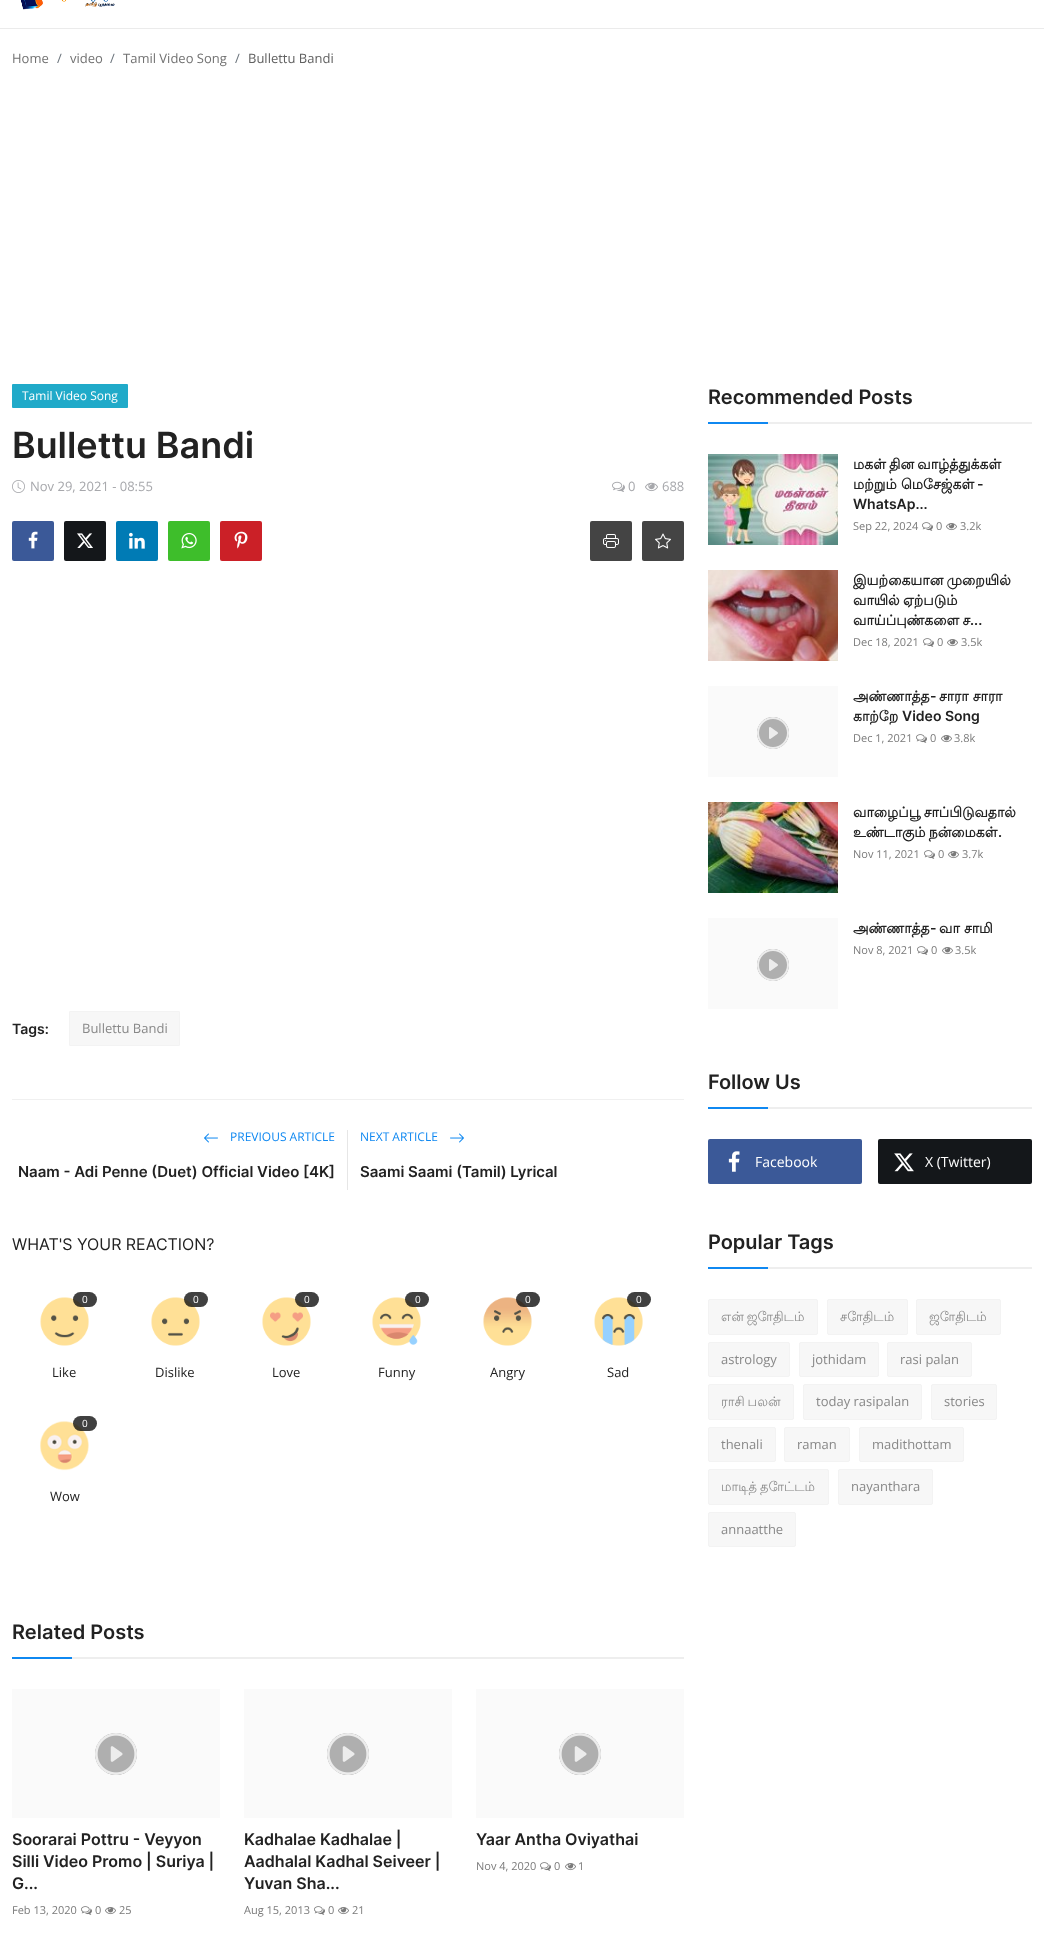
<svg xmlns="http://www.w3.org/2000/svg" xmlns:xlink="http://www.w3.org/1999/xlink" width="1044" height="1948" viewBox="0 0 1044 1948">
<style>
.cls-1{font:13px Open Sans;fill:#727272}
.cls-2{font:13px Open Sans;fill:#6c757d}
.cls-3{font:13px Open Sans;fill:#606060}
.cls-4{font:12px Open Sans;fill:#ffffff}
.cls-5{font:600 36px Inter;fill:#222222}
.cls-6{font:13px Open Sans;fill:#a7a8ac}
.cls-7{font:600 14px Inter;fill:#222222}
.cls-8{font:13px Open Sans;fill:#888888}
.cls-9{font:12px Open Sans;fill:#0f88f1}
.cls-10{font:600 15px Inter;fill:#222222}
.cls-11{font:16px Inter;fill:#222222}
.cls-12{font:10px Open Sans;fill:#ffffff}
.cls-13{font:13px Open Sans;fill:#222222}
.cls-14{font:600 20px Inter;fill:#222222}
.cls-15{font:600 16px Inter;fill:#222222}
.cls-16{font:11px Open Sans;fill:#7a7a7a}
.cls-17{font:bold 14px Lohit Tamil;fill:#222222}
.cls-18{font:14px Open Sans;fill:#ffffff}
.cls-19{font:13px Lohit Tamil;fill:#888888}
</style>
<rect width="100%" height="100%" fill="#ffffff"/>
<rect fill="#ebebeb" x="0" y="28" width="1044" height="1"/>
<image xlink:href="image0.png" x="20" y="0" width="95" height="10"/>
<rect fill="#20aac9" x="12" y="384" width="116" height="24" rx="1"/>
<image xlink:href="image1.png" x="12" y="480" width="13" height="13"/>
<image xlink:href="image2.png" x="612" y="481" width="13" height="11"/>
<image xlink:href="image3.png" x="645" y="482" width="13" height="10"/>
<rect fill="#3b5998" x="12" y="521" width="42" height="40" rx="2"/>
<image xlink:href="image4.png" x="28" y="531" width="10" height="18"/>
<rect fill="#14171a" x="64" y="521" width="42" height="40" rx="2"/>
<image xlink:href="image5.png" x="77" y="533" width="16" height="15"/>
<rect fill="#007bb5" x="116" y="521" width="42" height="40" rx="2"/>
<image xlink:href="image6.png" x="129" y="532" width="16" height="17"/>
<rect fill="#3ebe2b" x="168" y="521" width="42" height="40" rx="2"/>
<image xlink:href="image7.png" x="181" y="532" width="16" height="17"/>
<rect fill="#cb2027" x="220" y="521" width="42" height="40" rx="2"/>
<image xlink:href="image8.png" x="234" y="531" width="14" height="18"/>
<rect fill="#444444" x="590" y="521" width="42" height="40" rx="2"/>
<image xlink:href="image9.png" x="603" y="534" width="16" height="14"/>
<rect fill="#444444" x="642" y="521" width="42" height="40" rx="2"/>
<image xlink:href="image10.png" x="655" y="533" width="16" height="16"/>
<rect fill="#f7f7f7" stroke="#f3f3f3" x="69.5" y="1011.5" width="110" height="34" rx="0.5"/>
<rect fill="#f0f0f0" x="12" y="1099" width="672" height="1"/>
<rect fill="#e6e6e6" x="347" y="1130" width="1" height="60"/>
<image xlink:href="image11.png" x="204" y="1133" width="14" height="10"/>
<image xlink:href="image12.png" x="450" y="1133" width="14" height="10"/>
<image xlink:href="image13.png" x="40" y="1297" width="49" height="49"/>
<rect fill="#101010" fill-opacity="0.8" x="73" y="1292" width="24" height="15" rx="7.5"/>
<image xlink:href="image14.png" x="151" y="1297" width="49" height="49"/>
<rect fill="#101010" fill-opacity="0.8" x="184" y="1292" width="24" height="15" rx="7.5"/>
<image xlink:href="image15.png" x="262" y="1297" width="49" height="49"/>
<rect fill="#101010" fill-opacity="0.8" x="295" y="1292" width="24" height="15" rx="7.5"/>
<image xlink:href="image16.png" x="372" y="1297" width="49" height="49"/>
<rect fill="#101010" fill-opacity="0.8" x="405" y="1292" width="24" height="15" rx="7.5"/>
<image xlink:href="image17.png" x="483" y="1297" width="49" height="49"/>
<rect fill="#101010" fill-opacity="0.8" x="516" y="1292" width="24" height="15" rx="7.5"/>
<image xlink:href="image18.png" x="594" y="1297" width="49" height="49"/>
<rect fill="#101010" fill-opacity="0.8" x="627" y="1292" width="24" height="15" rx="7.5"/>
<image xlink:href="image19.png" x="40" y="1421" width="49" height="50"/>
<rect fill="#101010" fill-opacity="0.8" x="73" y="1416" width="24" height="15" rx="7.5"/>
<rect fill="#eeeeee" x="72" y="1657" width="612" height="2"/>
<rect fill="#0f88f1" x="12" y="1657" width="60" height="2"/>
<rect fill="#fafafa" x="12" y="1689" width="208" height="129"/>
<circle fill="#afafaf" cx="116" cy="1754" r="21"/>
<image xlink:href="image20.png" x="95" y="1733" width="42" height="42"/>
<image xlink:href="image21.png" x="81" y="1906" width="11" height="9"/>
<image xlink:href="image22.png" x="105" y="1907" width="11" height="8"/>
<rect fill="#fafafa" x="244" y="1689" width="208" height="129"/>
<circle fill="#afafaf" cx="348" cy="1754" r="21"/>
<image xlink:href="image20.png" x="327" y="1733" width="42" height="42"/>
<image xlink:href="image21.png" x="314" y="1906" width="11" height="9"/>
<image xlink:href="image22.png" x="338" y="1907" width="11" height="8"/>
<rect fill="#fafafa" x="476" y="1689" width="208" height="129"/>
<circle fill="#afafaf" cx="580" cy="1754" r="21"/>
<image xlink:href="image20.png" x="559" y="1733" width="42" height="42"/>
<image xlink:href="image21.png" x="540" y="1862" width="11" height="9"/>
<image xlink:href="image22.png" x="565" y="1863" width="11" height="8"/>
<rect fill="#eeeeee" x="768" y="422" width="264" height="2"/>
<rect fill="#0f88f1" x="708" y="422" width="60" height="2"/>
<image xlink:href="image23.png" x="708" y="454" width="130" height="91"/>
<image xlink:href="image21.png" x="922" y="522" width="11" height="9"/>
<image xlink:href="image22.png" x="946" y="523" width="11" height="8"/>
<image xlink:href="image24.png" x="708" y="570" width="130" height="91"/>
<image xlink:href="image21.png" x="923" y="638" width="11" height="9"/>
<image xlink:href="image22.png" x="947" y="639" width="11" height="8"/>
<rect fill="#fafafa" x="708" y="686" width="130" height="91"/>
<circle fill="#afafaf" cx="773" cy="733" r="16"/>
<image xlink:href="image25.png" x="757" y="717" width="32" height="32"/>
<image xlink:href="image21.png" x="916" y="734" width="11" height="9"/>
<image xlink:href="image22.png" x="941" y="735" width="11" height="8"/>
<image xlink:href="image26.png" x="708" y="802" width="130" height="91"/>
<image xlink:href="image21.png" x="924" y="850" width="11" height="9"/>
<image xlink:href="image22.png" x="948" y="851" width="11" height="8"/>
<rect fill="#fafafa" x="708" y="918" width="130" height="91"/>
<circle fill="#afafaf" cx="773" cy="965" r="16"/>
<image xlink:href="image25.png" x="757" y="949" width="32" height="32"/>
<image xlink:href="image21.png" x="917" y="946" width="11" height="9"/>
<image xlink:href="image22.png" x="942" y="947" width="11" height="8"/>
<rect fill="#eeeeee" x="768" y="1107" width="264" height="2"/>
<rect fill="#0f88f1" x="708" y="1107" width="60" height="2"/>
<rect fill="#3b5998" x="708" y="1139" width="154" height="45" rx="2"/>
<image xlink:href="image27.png" x="728" y="1151" width="12" height="21"/>
<rect fill="#14171a" x="878" y="1139" width="154" height="45" rx="2"/>
<image xlink:href="image28.png" x="894" y="1153" width="20" height="19"/>
<rect fill="#eeeeee" x="768" y="1267" width="264" height="2"/>
<rect fill="#0f88f1" x="708" y="1267" width="60" height="2"/>
<rect fill="#f7f7f7" stroke="#f3f3f3" x="708.5" y="1299.5" width="109" height="35" rx="1.5"/>
<rect fill="#f7f7f7" stroke="#f3f3f3" x="827.5" y="1299.5" width="80" height="35" rx="1.5"/>
<rect fill="#f7f7f7" stroke="#f3f3f3" x="916.5" y="1299.5" width="84" height="35" rx="1.5"/>
<rect fill="#f7f7f7" stroke="#f3f3f3" x="708.5" y="1342.5" width="81" height="34" rx="1.5"/>
<rect fill="#f7f7f7" stroke="#f3f3f3" x="799.5" y="1342.5" width="79" height="34" rx="1.5"/>
<rect fill="#f7f7f7" stroke="#f3f3f3" x="887.5" y="1342.5" width="84" height="34" rx="1.5"/>
<rect fill="#f7f7f7" stroke="#f3f3f3" x="708.5" y="1384.5" width="85" height="35" rx="1.5"/>
<rect fill="#f7f7f7" stroke="#f3f3f3" x="803.5" y="1384.5" width="118" height="35" rx="1.5"/>
<rect fill="#f7f7f7" stroke="#f3f3f3" x="931.5" y="1384.5" width="65" height="35" rx="1.5"/>
<rect fill="#f7f7f7" stroke="#f3f3f3" x="708.5" y="1427.5" width="67" height="34" rx="1.5"/>
<rect fill="#f7f7f7" stroke="#f3f3f3" x="784.5" y="1427.5" width="65" height="34" rx="1.5"/>
<rect fill="#f7f7f7" stroke="#f3f3f3" x="859.5" y="1427.5" width="104" height="34" rx="1.5"/>
<rect fill="#f7f7f7" stroke="#f3f3f3" x="708.5" y="1469.5" width="120" height="35" rx="1.5"/>
<rect fill="#f7f7f7" stroke="#f3f3f3" x="838.5" y="1469.5" width="94" height="35" rx="1.5"/>
<rect fill="#f7f7f7" stroke="#f3f3f3" x="708.5" y="1512.5" width="87" height="34" rx="1.5"/>
<text class="cls-1" x="12" y="63">Home</text>
<text class="cls-2" x="57" y="63">/</text>
<text class="cls-1" x="70" y="63">video</text>
<text class="cls-2" x="110" y="63">/</text>
<text class="cls-1" x="123" y="63">Tamil Video Song</text>
<text class="cls-2" x="235" y="63">/</text>
<text class="cls-3" x="248" y="63">Bullettu Bandi</text>
<text class="cls-4" x="22" y="400">Tamil Video Song</text>
<text class="cls-5" x="12" y="458">Bullettu Bandi</text>
<text class="cls-6" x="30" y="491">Nov 29, 2021 - 08:55</text>
<text class="cls-6" x="628" y="491">0</text>
<text class="cls-6" x="662" y="491">688</text>
<text class="cls-7" x="12" y="1034">Tags:</text>
<text class="cls-8" x="82" y="1033">Bullettu Bandi</text>
<text class="cls-9" x="230" y="1141">PREVIOUS ARTICLE</text>
<text class="cls-10" x="18" y="1177">Naam - Adi Penne (Duet) Official Video [4K]</text>
<text class="cls-9" x="360" y="1141">NEXT ARTICLE</text>
<text class="cls-10" x="360" y="1177">Saami Saami (Tamil) Lyrical</text>
<text class="cls-11" x="12" y="1250">WHAT'S YOUR REACTION?</text>
<text class="cls-12" x="82" y="1303">0</text>
<text class="cls-13" x="52" y="1377">Like</text>
<text class="cls-12" x="193" y="1303">0</text>
<text class="cls-13" x="155" y="1377">Dislike</text>
<text class="cls-12" x="304" y="1303">0</text>
<text class="cls-13" x="272" y="1377">Love</text>
<text class="cls-12" x="415" y="1303">0</text>
<text class="cls-13" x="378" y="1377">Funny</text>
<text class="cls-12" x="525" y="1303">0</text>
<text class="cls-13" x="490" y="1377">Angry</text>
<text class="cls-12" x="636" y="1303">0</text>
<text class="cls-13" x="607" y="1377">Sad</text>
<text class="cls-12" x="82" y="1427">0</text>
<text class="cls-13" x="50" y="1501">Wow</text>
<text class="cls-14" x="12" y="1639">Related Posts</text>
<text class="cls-15"><tspan x="12" y="1845">Soorarai Pottru - Veyyon</tspan><tspan x="12" y="1867">Silli Video Promo | Suriya |</tspan><tspan x="12" y="1889">G...</tspan></text>
<text class="cls-16" x="12" y="1914">Feb 13, 2020</text>
<text class="cls-16" x="95" y="1914">0</text>
<text class="cls-16" x="119" y="1914">25</text>
<text class="cls-15"><tspan x="244" y="1845">Kadhalae Kadhalae |</tspan><tspan x="244" y="1867">Aadhalal Kadhal Seiveer |</tspan><tspan x="244" y="1889">Yuvan Sha...</tspan></text>
<text class="cls-16" x="244" y="1914">Aug 15, 2013</text>
<text class="cls-16" x="328" y="1914">0</text>
<text class="cls-16" x="352" y="1914">21</text>
<text class="cls-15" x="476" y="1845">Yaar Antha Oviyathai</text>
<text class="cls-16" x="476" y="1870">Nov 4, 2020</text>
<text class="cls-16" x="554" y="1870">0</text>
<text class="cls-16" x="578" y="1870">1</text>
<text class="cls-14" x="708" y="404">Recommended Posts</text>
<text class="cls-17"><tspan x="853" y="469" word-spacing="-1">மகள் தின வாழ்த்துக்கள்</tspan><tspan x="853" y="489">மற்றும் மெசேஜ்கள்</tspan></text>
<text class="cls-7" x="977" y="489">-</text>
<text class="cls-7" x="853" y="509">WhatsAp...</text>
<text class="cls-16" x="853" y="530">Sep 22, 2024</text>
<text class="cls-16" x="936" y="530">0</text>
<text class="cls-16" x="960" y="530">3.2k</text>
<text class="cls-17"><tspan x="853" y="585" word-spacing="-1">இயற்கையான முறையில்</tspan><tspan x="853" y="605" word-spacing="-1">வாயில் ஏற்படும்</tspan><tspan x="853" y="625" word-spacing="-1">வாய்ப்புண்களை ச</tspan></text>
<text class="cls-7" x="970" y="625">...</text>
<text class="cls-16" x="853" y="646">Dec 18, 2021</text>
<text class="cls-16" x="937" y="646">0</text>
<text class="cls-16" x="961" y="646">3.5k</text>
<text class="cls-17" x="853" y="701">அண்ணாத்த</text>
<text class="cls-7" x="930" y="701">-</text>
<text class="cls-17" x="939" y="701">சாரா சாரா</text>
<text class="cls-17" x="853" y="721">காற்றே</text>
<text class="cls-7" x="902" y="721">Video Song</text>
<text class="cls-16" x="853" y="742">Dec 1, 2021</text>
<text class="cls-16" x="930" y="742">0</text>
<text class="cls-16" x="954" y="742">3.8k</text>
<text class="cls-17"><tspan x="853" y="817" word-spacing="-1">வாழைப்பூ சாப்பிடுவதால்</tspan><tspan x="853" y="837" word-spacing="-1">உண்டாகும் நன்மைகள்</tspan></text>
<text class="cls-7" x="998" y="837">.</text>
<text class="cls-16" x="853" y="858">Nov 11, 2021</text>
<text class="cls-16" x="938" y="858">0</text>
<text class="cls-16" x="962" y="858">3.7k</text>
<text class="cls-17" x="853" y="933">அண்ணாத்த</text>
<text class="cls-7" x="930" y="933">-</text>
<text class="cls-17" x="939" y="933">வா சாமி</text>
<text class="cls-16" x="853" y="954">Nov 8, 2021</text>
<text class="cls-16" x="931" y="954">0</text>
<text class="cls-16" x="955" y="954">3.5k</text>
<text class="cls-14" x="708" y="1089">Follow Us</text>
<text class="cls-18" x="755" y="1167">Facebook</text>
<text class="cls-18" x="925" y="1167">X (Twitter)</text>
<text class="cls-14" x="708" y="1249">Popular Tags</text>
<text class="cls-19" x="721" y="1321" word-spacing="-1">என் ஜோதிடம்</text>
<text class="cls-19" x="840" y="1321">சோதிடம்</text>
<text class="cls-19" x="929" y="1321">ஜோதிடம்</text>
<text class="cls-8" x="721" y="1364">astrology</text>
<text class="cls-8" x="812" y="1364">jothidam</text>
<text class="cls-8" x="900" y="1364">rasi palan</text>
<text class="cls-19" x="721" y="1406" word-spacing="-1">ராசி பலன்</text>
<text class="cls-8" x="816" y="1406">today rasipalan</text>
<text class="cls-8" x="944" y="1406">stories</text>
<text class="cls-8" x="721" y="1449">thenali</text>
<text class="cls-8" x="797" y="1449">raman</text>
<text class="cls-8" x="872" y="1449">madithottam</text>
<text class="cls-19" x="721" y="1491" word-spacing="-1">மாடித் தோட்டம்</text>
<text class="cls-8" x="851" y="1491">nayanthara</text>
<text class="cls-8" x="721" y="1534">annaatthe</text>
</svg>
